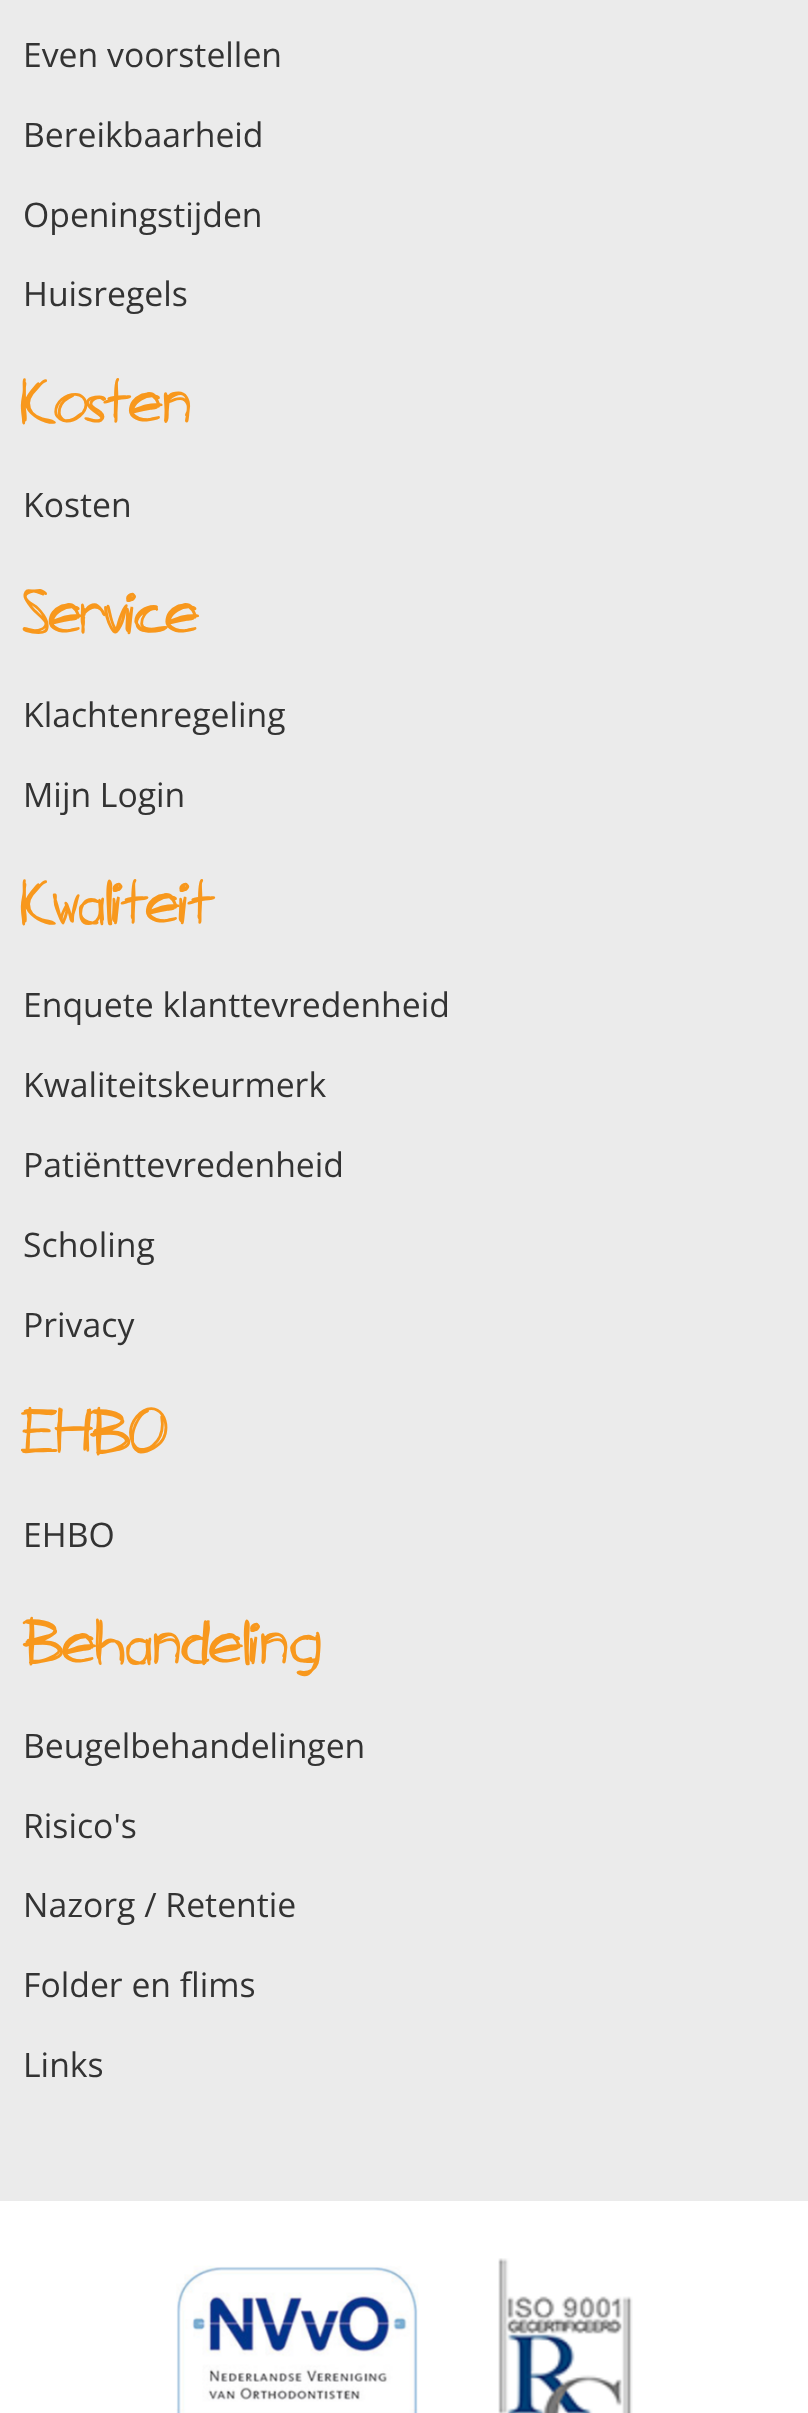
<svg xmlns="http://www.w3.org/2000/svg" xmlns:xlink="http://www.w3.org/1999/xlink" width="808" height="2413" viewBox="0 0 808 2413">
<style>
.cls-1{font:33.75px Open Sans;fill:#333333}
.cls-2{font:67.5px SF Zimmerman;fill:#f8981d}
</style>
<rect width="100%" height="100%" fill="#ffffff"/>
<rect fill="#ebebeb" x="0" y="0" width="808" height="2201"/>
<image xlink:href="image0.png" x="176" y="2265" width="243" height="148"/>
<image xlink:href="image1.png" x="498" y="2258" width="135" height="155"/>
<text class="cls-1" x="23" y="67">Even voorstellen</text>
<text class="cls-1" x="23" y="147">Bereikbaarheid</text>
<text class="cls-1" x="23" y="227">Openingstijden</text>
<text class="cls-1" x="23" y="306">Huisregels</text>
<text class="cls-2" x="23" y="423">Kosten</text>
<text class="cls-1" x="23" y="517">Kosten</text>
<text class="cls-2" x="23" y="634">Service</text>
<text class="cls-1" x="23" y="727">Klachtenregeling</text>
<text class="cls-1" x="23" y="807">Mijn Login</text>
<text class="cls-2" x="23" y="924">Kwaliteit</text>
<text class="cls-1" x="23" y="1017">Enquete klanttevredenheid</text>
<text class="cls-1" x="23" y="1097">Kwaliteitskeurmerk</text>
<text class="cls-1" x="23" y="1177">Patiënttevredenheid</text>
<text class="cls-1" x="23" y="1257">Scholing</text>
<text class="cls-1" x="23" y="1337">Privacy</text>
<text class="cls-2" x="23" y="1454">EHBO</text>
<text class="cls-1" x="23" y="1547">EHBO</text>
<text class="cls-2" x="23" y="1664">Behandeling</text>
<text class="cls-1" x="23" y="1758">Beugelbehandelingen</text>
<text class="cls-1" x="23" y="1838">Risico's</text>
<text class="cls-1" x="23" y="1917">Nazorg / Retentie</text>
<text class="cls-1" x="23" y="1997">Folder en flims</text>
<text class="cls-1" x="23" y="2077">Links</text>
</svg>
